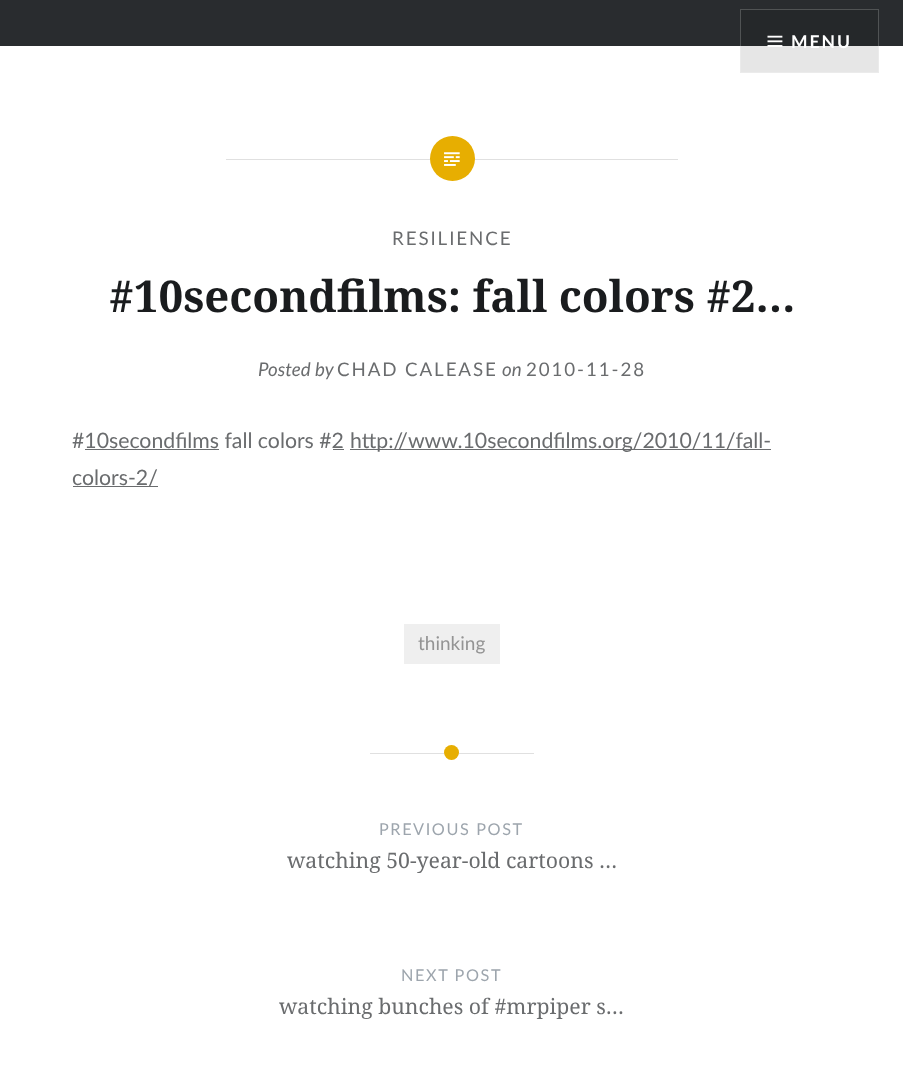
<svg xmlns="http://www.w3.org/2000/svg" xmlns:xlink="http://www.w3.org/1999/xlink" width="903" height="1091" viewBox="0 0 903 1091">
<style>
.cls-1{font:bold 17.5px Lato;letter-spacing:2px;fill:#ffffff}
.cls-2{font:18.75px Lato;letter-spacing:1.9px;fill:#6a6c6e}
.cls-3{font:bold 43.75px Noto Serif;fill:#1a1c1e}
.cls-4{font:italic 18.75px Lato;fill:#6a6c6e}
.cls-5{font:21.25px Lato;fill:#6a6c6e}
.cls-6{font:19px Lato;fill:#949494}
.cls-7{font:16.25px Lato;letter-spacing:1.6px;fill:#9da5ad}
.cls-8{font:21.25px Noto Serif;fill:#6a6c6e}
</style>
<rect width="100%" height="100%" fill="#ffffff"/>
<rect fill="#e6e6e6" x="740" y="46" width="139" height="27"/>
<rect fill="#292c2f" x="0" y="0" width="903" height="46"/>
<rect fill="#25282a" x="740" y="9" width="139" height="37"/>
<rect fill="none" stroke="#ffffff" stroke-opacity="0.2" x="740.5" y="9.5" width="138" height="63"/>
<image xlink:href="image0.png" x="767" y="35" width="16" height="12"/>
<rect fill="#e0e0e0" x="226" y="159" width="452" height="1"/>
<circle fill="#e7ae01" cx="452.5" cy="158.5" r="22.5"/>
<image xlink:href="image1.png" x="444" y="152" width="16" height="14"/>
<rect fill="#6a6c6e" x="350" y="449" width="421" height="1"/>
<rect fill="#6a6c6e" x="85" y="449" width="134" height="1"/>
<rect fill="#6a6c6e" x="333" y="449" width="11" height="1"/>
<rect fill="#6a6c6e" x="73" y="486" width="85" height="1"/>
<rect fill="#efefef" x="404" y="624" width="96" height="40"/>
<rect fill="#e0e0e0" x="370" y="753" width="164" height="1"/>
<circle fill="#e7ae01" cx="451.5" cy="752.5" r="7.5"/>
<text class="cls-1" x="791" y="48">MENU</text>
<text class="cls-2" x="392" y="245">RESILIENCE</text>
<text class="cls-3" x="109" y="312">#10secondfilms: fall colors #2…</text>
<text class="cls-4" x="258" y="376">Posted by</text>
<text class="cls-2" x="337" y="376">CHAD CALEASE</text>
<text class="cls-4" x="502" y="376">on</text>
<text class="cls-2" x="526" y="376">2010-11-28</text>
<text class="cls-5" x="72" y="448">#10secondfilms fall colors #2</text>
<text class="cls-5" x="350" y="448">http://www.10secondfilms.org/2010/11/fall-</text>
<text class="cls-5" x="72" y="485">colors-2/</text>
<text class="cls-6" x="418" y="650">thinking</text>
<text class="cls-7" x="379" y="835">PREVIOUS POST</text>
<text class="cls-8" x="287" y="868">watching 50-year-old cartoons …</text>
<text class="cls-7" x="401" y="981">NEXT POST</text>
<text class="cls-8" x="279" y="1014">watching bunches of #mrpiper s…</text>
</svg>
